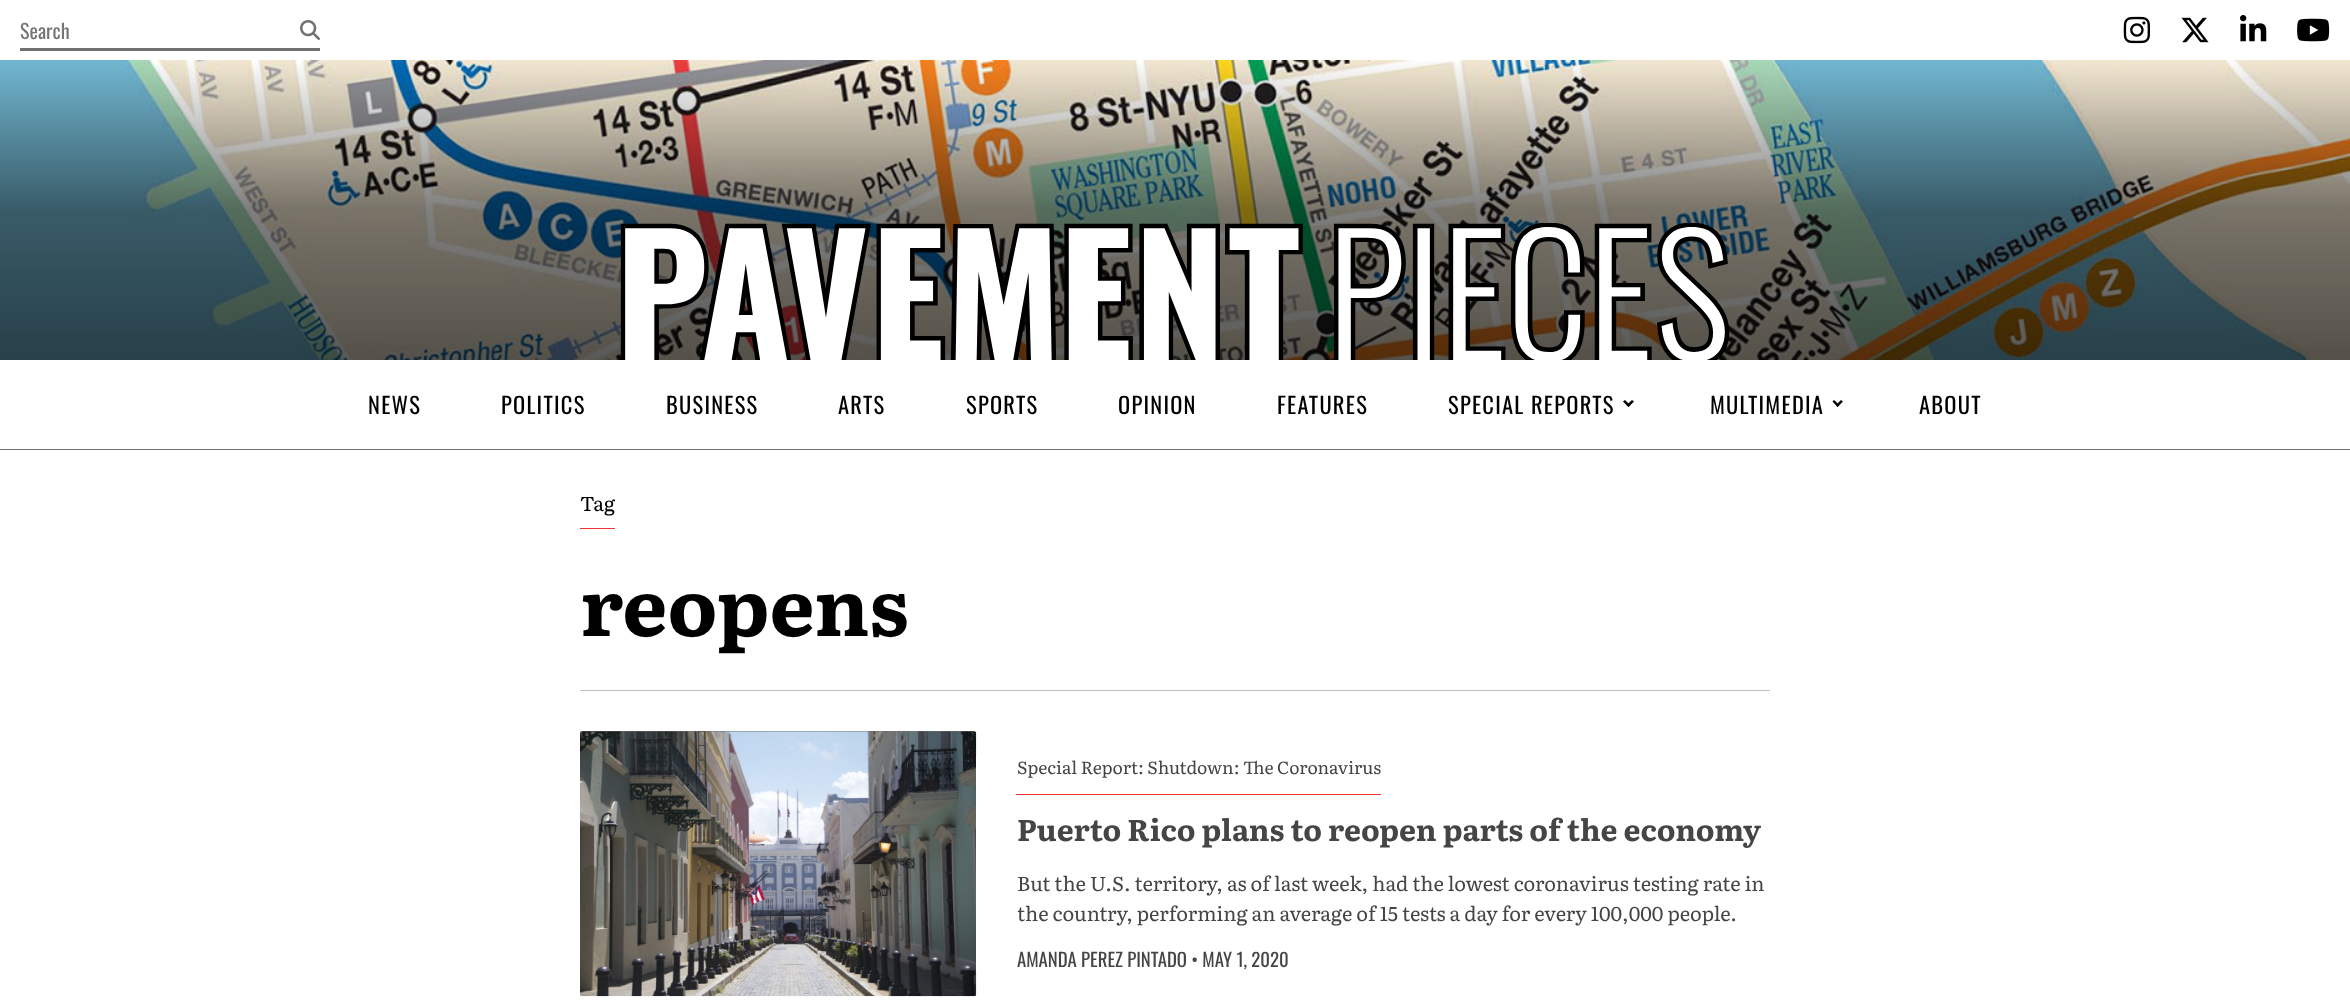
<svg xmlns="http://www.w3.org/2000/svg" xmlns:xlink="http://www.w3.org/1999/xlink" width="2350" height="1008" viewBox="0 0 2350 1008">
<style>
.cls-1{font:20px Oswald;fill:#757575}
.cls-2{font:22.5px Oswald;letter-spacing:1.25px;fill:#000000}
.cls-3{font:20px Literata;fill:#000000}
.cls-4{font:bold 80px Literata;fill:#000000}
.cls-5{font:17.5px Literata;fill:#454545}
.cls-6{font:bold 30px Literata;fill:#454545}
.cls-7{font:20px Literata;fill:#454545}
.cls-8{font:18.75px Oswald;fill:#454545}
</style>
<rect width="100%" height="100%" fill="#ffffff"/>
<rect fill="#707070" x="0" y="449" width="2350" height="1"/>
<rect fill="#707070" x="20" y="48" width="300" height="3"/>
<image xlink:href="image0.png" x="300" y="20" width="20" height="20"/>
<image xlink:href="image1.png" x="2123" y="16" width="27" height="28"/>
<image xlink:href="image2.png" x="2181" y="17" width="28" height="26"/>
<image xlink:href="image3.png" x="2240" y="15" width="27" height="27"/>
<image xlink:href="image4.png" x="2297" y="18" width="33" height="24"/>
<image xlink:href="image5.png" x="0" y="60" width="2350" height="300"/>
<image xlink:href="image6.png" x="620" y="223" width="1110" height="137"/>
<path fill="#000000" d="M1632 400L1634 401.5L1628.5 407L1626.5 405Z"/>
<path fill="#000000" d="M1625 400L1630 405L1628.5 407L1623 401.5Z"/>
<path fill="#000000" d="M1841 400L1843 401.5L1837.5 407L1836 405Z"/>
<path fill="#000000" d="M1834 400L1839.5 405L1837.5 407L1832.5 401.5Z"/>
<rect fill="#f03232" x="580" y="528" width="35" height="1"/>
<rect fill="#c0c0c0" x="580" y="690" width="1190" height="1"/>
<rect fill="#707070" x="580" y="731" width="396" height="265" rx="2.5"/>
<image xlink:href="image7.png" x="580" y="731" width="397" height="266"/>
<rect fill="#ffffff" x="976" y="756" width="1" height="215"/>
<rect fill="#f03232" x="1016" y="794" width="365" height="1"/>
<text class="cls-1" x="20" y="39">Search</text>
<text class="cls-2" x="368" y="414">NEWS</text>
<text class="cls-2" x="501" y="414">POLITICS</text>
<text class="cls-2" x="666" y="414">BUSINESS</text>
<text class="cls-2" x="838" y="414">ARTS</text>
<text class="cls-2" x="966" y="414">SPORTS</text>
<text class="cls-2" x="1118" y="414">OPINION</text>
<text class="cls-2" x="1277" y="414">FEATURES</text>
<text class="cls-2" x="1448" y="414">SPECIAL REPORTS</text>
<text class="cls-2" x="1710" y="414">MULTIMEDIA</text>
<text class="cls-2" x="1919" y="414">ABOUT</text>
<text class="cls-3" x="580" y="511">Tag</text>
<text class="cls-4" x="580" y="636">reopens</text>
<text class="cls-5" x="1017" y="774">Special Report: Shutdown: The Coronavirus</text>
<text class="cls-6" x="1017" y="841">Puerto Rico plans to reopen parts of the economy</text>
<text class="cls-7"><tspan x="1017" y="891">But the U.S. territory, as of last week, had the lowest coronavirus testing rate in</tspan><tspan x="1017" y="921">the country, performing an average of 15 tests a day for every 100,000 people.</tspan></text>
<text class="cls-8" x="1017" y="967">AMANDA PEREZ PINTADO • MAY 1, 2020</text>
</svg>
